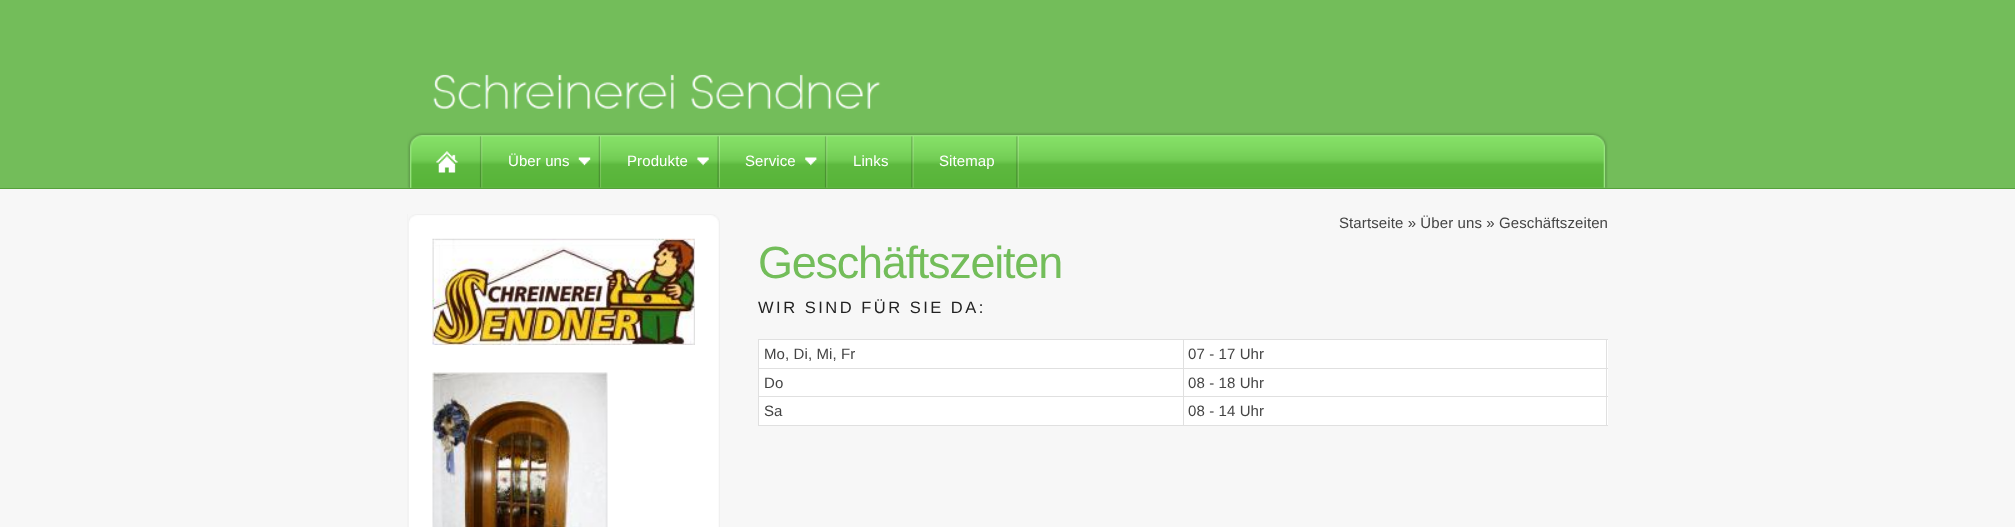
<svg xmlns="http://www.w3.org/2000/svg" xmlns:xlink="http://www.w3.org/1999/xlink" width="2015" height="527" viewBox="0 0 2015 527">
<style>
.cls-1{font:15px Liberation Sans;letter-spacing:0.1px;fill:#ffffff}
.cls-2{font:15px Liberation Sans;letter-spacing:0.1px;fill:#444444}
.cls-3{font:45px Liberation Sans;letter-spacing:-1.25px;fill:#73bd5a}
.cls-4{font:16.5px Liberation Sans;letter-spacing:2.5px;fill:#222222}
</style>
<rect width="100%" height="100%" fill="#f7f7f7"/>
<rect fill="#73bd5a" x="0" y="0" width="2015" height="188"/>
<image xlink:href="image0.png" x="433" y="74" width="448" height="35"/>
<image xlink:href="image1.png" x="407" y="132" width="1201" height="56"/>
<image xlink:href="image2.png" x="409" y="136" width="74" height="52"/>
<image xlink:href="image3.png" x="482" y="136" width="120" height="52"/>
<image xlink:href="image4.png" x="601" y="136" width="119" height="52"/>
<image xlink:href="image5.png" x="720" y="136" width="108" height="52"/>
<image xlink:href="image6.png" x="827" y="136" width="87" height="52"/>
<image xlink:href="image7.png" x="913" y="136" width="106" height="52"/>
<rect fill="#55a13b" x="0" y="188" width="2015" height="1"/>
<image xlink:href="image8.png" x="407" y="214" width="313" height="313"/>
<image xlink:href="image9.png" x="408" y="214" width="312" height="12"/>
<image xlink:href="image10.png" x="432" y="238" width="263" height="107"/>
<image xlink:href="image11.png" x="432" y="372" width="176" height="155"/>
<rect fill="#ffffff" x="759" y="340" width="849" height="85"/>
<rect fill="#e0e0e0" x="758" y="339" width="850" height="1"/>
<rect fill="#e0e0e0" x="1606" y="339" width="1" height="87"/>
<rect fill="#e0e0e0" x="758" y="425" width="850" height="1"/>
<rect fill="#e0e0e0" x="758" y="339" width="1" height="87"/>
<rect fill="#e0e0e0" x="1183" y="368" width="425" height="1"/>
<rect fill="#e0e0e0" x="1183" y="396" width="425" height="1"/>
<rect fill="#e0e0e0" x="1183" y="396" width="1" height="30"/>
<rect fill="#e0e0e0" x="758" y="396" width="426" height="1"/>
<rect fill="#e0e0e0" x="1183" y="368" width="1" height="30"/>
<rect fill="#e0e0e0" x="758" y="368" width="426" height="1"/>
<rect fill="#e0e0e0" x="1183" y="339" width="1" height="30"/>
<text class="cls-1" x="508" y="166">Über uns</text>
<text class="cls-1" x="627" y="166">Produkte</text>
<text class="cls-1" x="745" y="166">Service</text>
<text class="cls-1" x="853" y="166">Links</text>
<text class="cls-1" x="939" y="166">Sitemap</text>
<text class="cls-2" x="1339" y="228">Startseite » Über uns » Geschäftszeiten</text>
<text class="cls-3" x="758" y="278">Geschäftszeiten</text>
<text class="cls-4" x="758" y="313">WIR SIND FÜR SIE DA:</text>
<text class="cls-2" x="764" y="359">Mo, Di, Mi, Fr</text>
<text class="cls-2" x="1188" y="359">07 - 17 Uhr</text>
<text class="cls-2" x="764" y="388">Do</text>
<text class="cls-2" x="1188" y="388">08 - 18 Uhr</text>
<text class="cls-2" x="764" y="416">Sa</text>
<text class="cls-2" x="1188" y="416">08 - 14 Uhr</text>
</svg>
